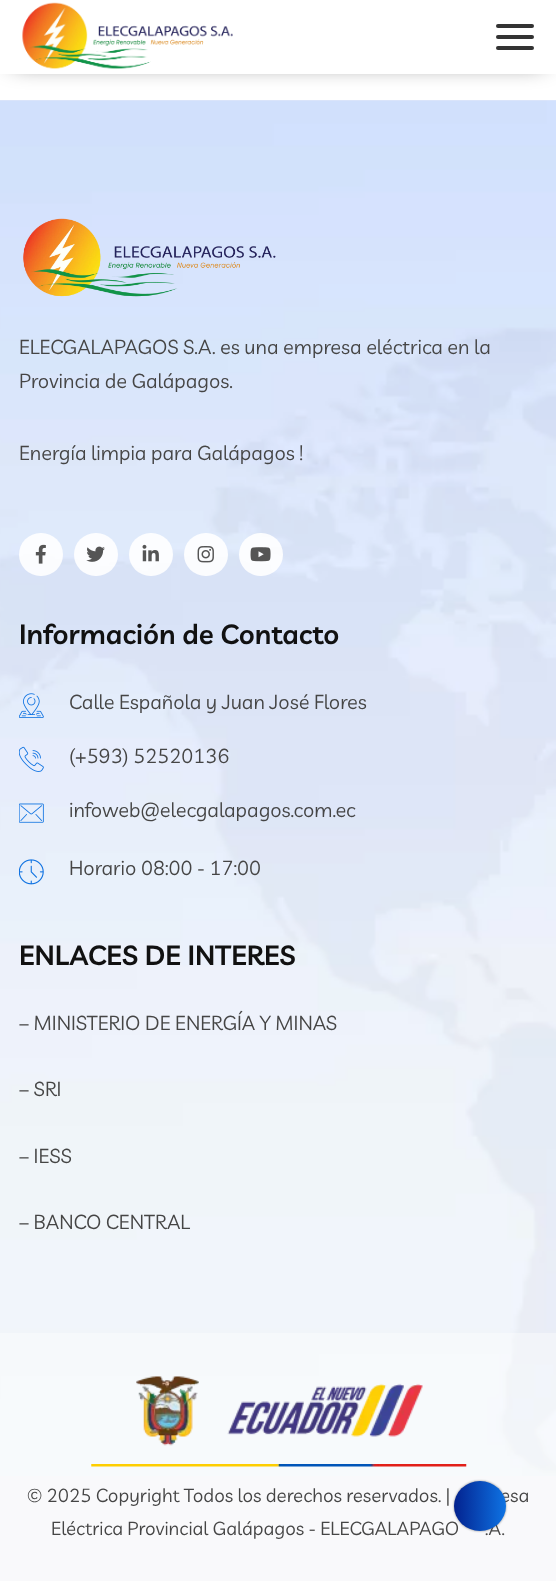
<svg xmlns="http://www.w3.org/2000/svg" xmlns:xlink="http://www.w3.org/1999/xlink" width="556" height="1581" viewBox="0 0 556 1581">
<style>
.cls-1{font:20px Livvic;fill:#454545}
.cls-2{font:600 27.5px Livvic;fill:#111111}
.cls-3{font:18.75px Livvic;fill:#454545}
</style>
<defs>
<clipPath id="clip1"><path d="M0 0H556V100H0ZM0 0H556V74H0Z" clip-rule="evenodd"/></clipPath>
<linearGradient id="g1" gradientUnits="userSpaceOnUse" x1="454" y1="1506" x2="506" y2="1506"><stop offset="0" stop-color="#03228f"/><stop offset="1" stop-color="#0e73e4"/></linearGradient>
</defs>
<rect width="100%" height="100%" fill="#ffffff"/>
<g clip-path="url(#clip1)">
<rect fill="#000000" fill-opacity="0.8" filter="blur(12.5px)" x="13" y="13" width="531" height="48"/>
</g>
<rect fill="#ffffff" fill-opacity="0.9" x="8" y="73" width="541" height="1"/>
<image xlink:href="image0.png" x="22" y="2" width="211" height="67"/>
<rect fill="#333333" x="496" y="24" width="38" height="4" rx="2"/>
<rect fill="#333333" x="496" y="35" width="38" height="4" rx="2"/>
<rect fill="#333333" x="496" y="46" width="38" height="4" rx="2"/>
<rect fill="#f5f6f9" x="0" y="100" width="556" height="1481"/>
<image xlink:href="image1.png" x="0" y="100" width="556" height="1376"/>
<image xlink:href="image2.png" x="23" y="218" width="253" height="79"/>
<rect fill="#ffffff" fill-opacity="0.9" x="19" y="533" width="44" height="43" rx="21.5"/>
<image xlink:href="image3.png" x="35" y="544" width="11" height="20"/>
<rect fill="#ffffff" fill-opacity="0.9" x="74" y="533" width="44" height="43" rx="21.5"/>
<image xlink:href="image4.png" x="86" y="546" width="19" height="16"/>
<rect fill="#ffffff" fill-opacity="0.9" x="129" y="533" width="44" height="43" rx="21.5"/>
<image xlink:href="image5.png" x="142" y="544" width="17" height="18"/>
<rect fill="#ffffff" fill-opacity="0.9" x="184" y="533" width="44" height="43" rx="21.5"/>
<image xlink:href="image6.png" x="197" y="546" width="17" height="17"/>
<rect fill="#ffffff" fill-opacity="0.9" x="239" y="533" width="44" height="43" rx="21.5"/>
<image xlink:href="image7.png" x="250" y="547" width="21" height="15"/>
<image xlink:href="image8.png" x="19" y="693" width="25" height="25"/>
<image xlink:href="image9.png" x="19" y="746" width="25" height="26"/>
<image xlink:href="image10.png" x="19" y="803" width="25" height="20"/>
<image xlink:href="image11.png" x="19" y="859" width="25" height="26"/>
<rect fill="#ffffff" fill-opacity="0.4" x="0" y="1333" width="556" height="248"/>
<image xlink:href="image12.png" x="136" y="1376" width="287" height="70"/>
<image xlink:href="image13.png" x="91" y="1464" width="376" height="3"/>
<rect fill="#000000" fill-opacity="0.4" filter="blur(1px)" x="454" y="1481" width="52" height="50" rx="25"/>
<text class="cls-1"><tspan x="19" y="354">ELECGALAPAGOS S.A. es una empresa eléctrica en la</tspan><tspan x="19" y="388">Provincia de Galápagos.</tspan></text>
<text class="cls-1" x="19" y="460">Energía limpia para Galápagos !</text>
<text class="cls-2" x="19" y="644">Información de Contacto</text>
<text class="cls-1" x="69" y="709">Calle Española y Juan José Flores</text>
<text class="cls-1" x="69" y="763">(+593) 52520136</text>
<text class="cls-1" x="69" y="817">infoweb@elecgalapagos.com.ec</text>
<text class="cls-1" x="69" y="875">Horario 08:00 - 17:00</text>
<text class="cls-2" x="19" y="965">ENLACES DE INTERES</text>
<text class="cls-1" x="19" y="1030">– MINISTERIO DE ENERGÍA Y MINAS</text>
<text class="cls-1" x="19" y="1096">– SRI</text>
<text class="cls-1" x="19" y="1163">– IESS</text>
<text class="cls-1" x="19" y="1229">– BANCO CENTRAL</text>
<text class="cls-3" x="27" y="1502">© 2025 Copyright Todos los derechos reservados. |</text>
<text class="cls-3" x="500" y="1502">esa</text>
<text class="cls-3" x="51" y="1535">Eléctrica Provincial Galápagos - ELECGALAPAGO</text>
<text class="cls-3" x="485" y="1535">.A.</text>
<ellipse fill="url(#g1)" cx="480" cy="1506" rx="26" ry="25"/>
</svg>
